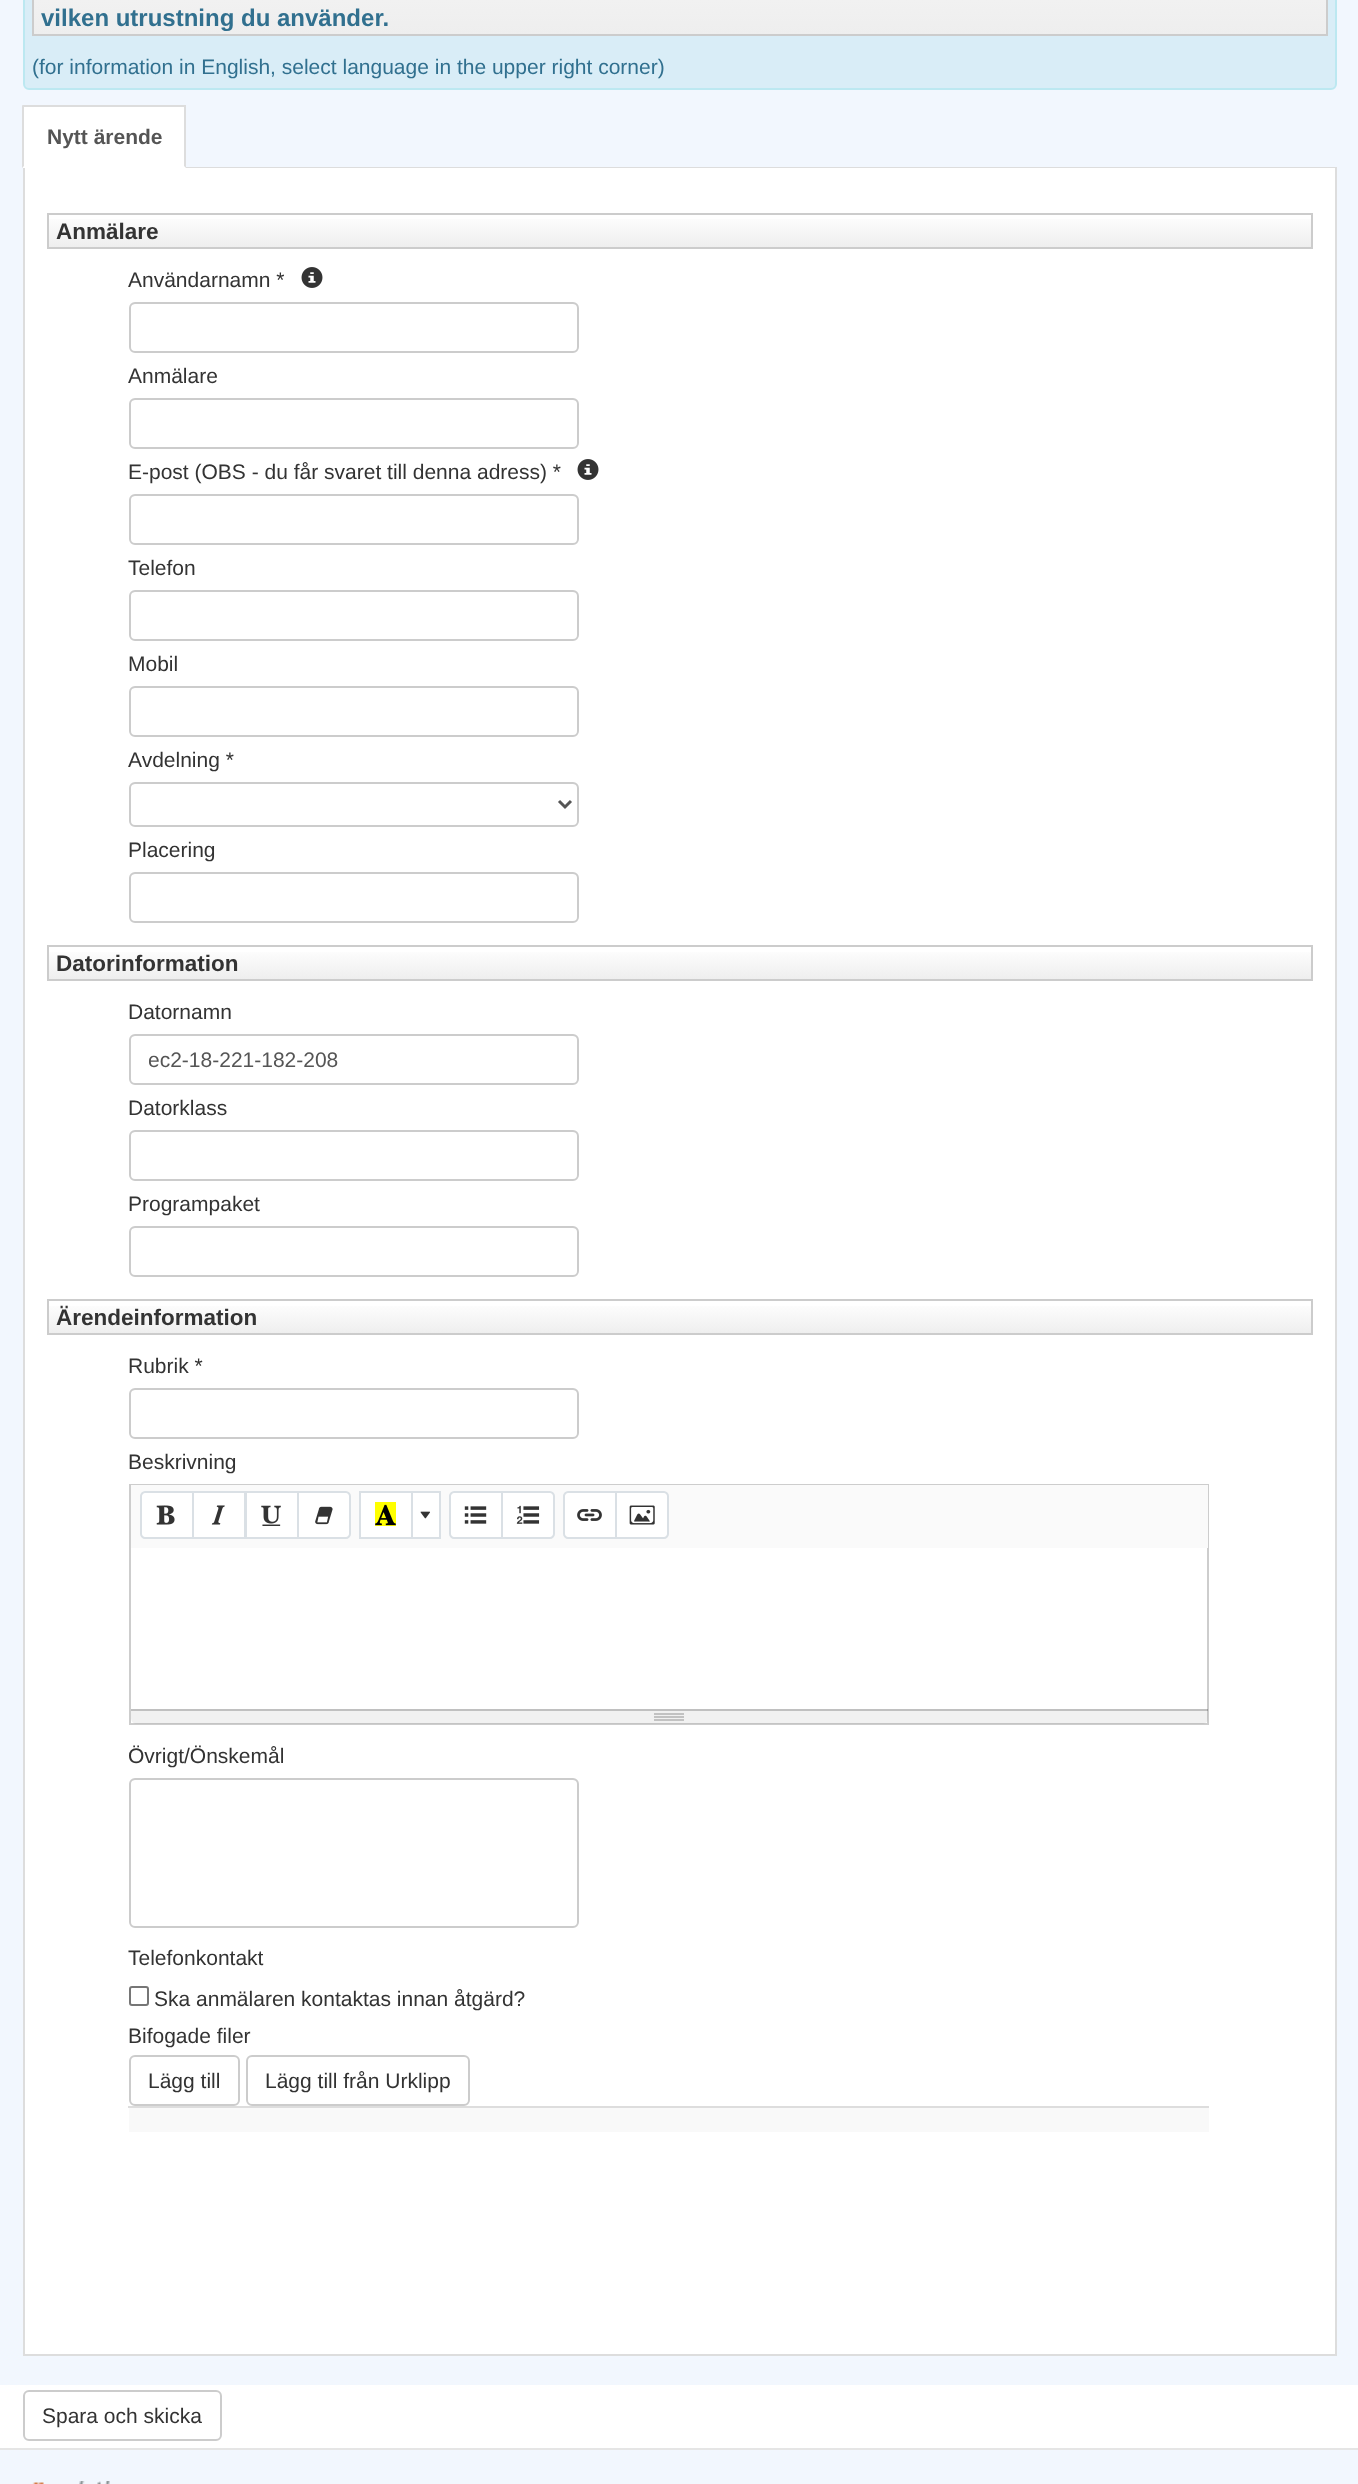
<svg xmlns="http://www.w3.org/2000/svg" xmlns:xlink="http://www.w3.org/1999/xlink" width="1358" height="2484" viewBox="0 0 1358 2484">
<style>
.cls-1{font:bold 24px Liberation Sans;fill:#31708f}
.cls-2{font:21px Liberation Sans;fill:#31708f}
.cls-3{font:bold 21px Liberation Sans;fill:#555555}
.cls-4{font:bold 22.5px Liberation Sans;fill:#333333}
.cls-5{font:21px Liberation Sans;fill:#333333}
.cls-6{font:21px Liberation Sans;fill:#555555}
</style>
<defs>
<linearGradient id="g1" gradientUnits="userSpaceOnUse" x1="680" y1="-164" x2="680" y2="35"><stop offset="0" stop-color="#ffffff"/><stop offset="1" stop-color="#eeeeee"/></linearGradient>
<linearGradient id="g2" gradientUnits="userSpaceOnUse" x1="680" y1="214" x2="680" y2="248"><stop offset="0" stop-color="#ffffff"/><stop offset="1" stop-color="#eeeeee"/></linearGradient>
<linearGradient id="g3" gradientUnits="userSpaceOnUse" x1="680" y1="947" x2="680" y2="980"><stop offset="0" stop-color="#ffffff"/><stop offset="1" stop-color="#eeeeee"/></linearGradient>
<linearGradient id="g4" gradientUnits="userSpaceOnUse" x1="680" y1="1301" x2="680" y2="1334"><stop offset="0" stop-color="#ffffff"/><stop offset="1" stop-color="#eeeeee"/></linearGradient>
<clipPath id="clip1"><rect x="149" y="1047" width="411" height="24"/></clipPath>
</defs>
<rect width="100%" height="100%" fill="#f2f7fe"/>
<rect fill="#d9edf7" stroke="#bce8f1" stroke-width="2" x="24" y="-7" width="1312" height="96" rx="5"/>
<rect fill="url(#g1)" x="34" y="0" width="1292" height="34"/>
<rect fill="none" stroke="#cccccc" stroke-width="2" x="33" y="-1" width="1294" height="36"/>
<rect fill="#dddddd" x="186" y="167" width="1151" height="1"/>
<rect fill="#ffffff" x="23" y="107" width="163" height="61"/>
<rect fill="#dddddd" x="23" y="105" width="163" height="2"/>
<path fill="#dddddd" d="M186 105V168L184 166V106Z"/>
<path fill="#dddddd" d="M22 168V105L24 106V166Z"/>
<rect fill="#ffffff" x="25" y="168" width="1310" height="2186"/>
<rect fill="#dddddd" x="1335" y="168" width="2" height="2187"/>
<rect fill="#dddddd" x="23" y="2354" width="1314" height="2"/>
<rect fill="#dddddd" x="23" y="168" width="2" height="2187"/>
<rect fill="url(#g2)" x="49" y="219" width="1262" height="28"/>
<rect fill="none" stroke="#cccccc" stroke-width="2" x="48" y="214" width="1264" height="34"/>
<image xlink:href="image0.png" x="301" y="267" width="22" height="21"/>
<path fill="#ececec" d="M135 304H573C575 304 578 307 578 309V308C578 305 576 303 573 303H136C134 303 132 304 131 306C132 305 134 304 135 304Z"/>
<rect fill="none" stroke="#cccccc" stroke-width="2" x="130" y="303" width="448" height="49" rx="5"/>
<path fill="#ececec" d="M135 400H573C575 400 578 403 578 405V404C578 401 576 399 573 399H136C134 399 132 400 131 402C132 401 134 400 135 400Z"/>
<rect fill="none" stroke="#cccccc" stroke-width="2" x="130" y="399" width="448" height="49" rx="5"/>
<image xlink:href="image0.png" x="577" y="459" width="22" height="21"/>
<path fill="#ececec" d="M135 496H573C575 496 578 499 578 501V500C578 497 576 495 573 495H136C134 495 132 496 131 498C132 497 134 496 135 496Z"/>
<rect fill="none" stroke="#cccccc" stroke-width="2" x="130" y="495" width="448" height="49" rx="5"/>
<path fill="#ececec" d="M135 592H573C575 592 578 595 578 597V596C578 593 576 591 573 591H136C134 591 132 592 131 594C132 593 134 592 135 592Z"/>
<rect fill="none" stroke="#cccccc" stroke-width="2" x="130" y="591" width="448" height="49" rx="5"/>
<path fill="#ececec" d="M135 688H573C575 688 578 691 578 693V692C578 689 576 687 573 687H136C134 687 132 688 131 690C132 689 134 688 135 688Z"/>
<rect fill="none" stroke="#cccccc" stroke-width="2" x="130" y="687" width="448" height="49" rx="5"/>
<path fill="#ececec" d="M135 784H573C575 784 578 787 578 789V788C578 785 576 783 573 783H136C134 783 132 784 131 786C132 785 134 784 135 784Z"/>
<rect fill="none" stroke="#cccccc" stroke-width="2" x="130" y="783" width="448" height="43" rx="5"/>
<path fill="none" stroke="#555555" stroke-width="3" d="M559 801L565 807L571 801"/>
<path fill="#ececec" d="M135 874H573C575 874 578 877 578 879V878C578 875 576 873 573 873H136C134 873 132 874 131 876C132 875 134 874 135 874Z"/>
<rect fill="none" stroke="#cccccc" stroke-width="2" x="130" y="873" width="448" height="49" rx="5"/>
<rect fill="url(#g3)" x="49" y="952" width="1262" height="27"/>
<rect fill="none" stroke="#cccccc" stroke-width="2" x="48" y="946" width="1264" height="34"/>
<path fill="#ececec" d="M135 1036H573C575 1036 578 1039 578 1041V1040C578 1037 576 1035 573 1035H136C134 1035 132 1036 131 1038C132 1037 134 1036 135 1036Z"/>
<rect fill="none" stroke="#cccccc" stroke-width="2" x="130" y="1035" width="448" height="49" rx="5"/>
<path fill="#ececec" d="M135 1132H573C575 1132 578 1135 578 1137V1136C578 1133 576 1131 573 1131H136C134 1131 132 1132 131 1134C132 1133 134 1132 135 1132Z"/>
<rect fill="none" stroke="#cccccc" stroke-width="2" x="130" y="1131" width="448" height="49" rx="5"/>
<path fill="#ececec" d="M135 1228H573C575 1228 578 1231 578 1233V1232C578 1229 576 1227 573 1227H136C134 1227 132 1228 131 1230C132 1229 134 1228 135 1228Z"/>
<rect fill="none" stroke="#cccccc" stroke-width="2" x="130" y="1227" width="448" height="49" rx="5"/>
<rect fill="url(#g4)" x="49" y="1306" width="1262" height="27"/>
<rect fill="none" stroke="#cccccc" stroke-width="2" x="48" y="1300" width="1264" height="34"/>
<path fill="#ececec" d="M135 1390H573C575 1390 578 1393 578 1395V1394C578 1391 576 1389 573 1389H136C134 1389 132 1390 131 1392C132 1391 134 1390 135 1390Z"/>
<rect fill="none" stroke="#cccccc" stroke-width="2" x="130" y="1389" width="448" height="49" rx="5"/>
<rect fill="none" stroke="#cdcdcd" stroke-width="2" x="130" y="1485" width="1078" height="239"/>
<rect fill="#fafafa" x="131" y="1485" width="1077" height="63"/>
<path fill="#ffffff" stroke="#dae0e5" stroke-width="2" d="M145 1492H193V1538H145C143 1538 141 1536 141 1534V1496C141 1494 143 1492 145 1492Z"/>
<image xlink:href="image1.png" x="156" y="1505" width="19" height="20"/>
<rect fill="#ffffff" stroke="#dae0e5" stroke-width="2" x="193" y="1492" width="52" height="46"/>
<image xlink:href="image2.png" x="211" y="1505" width="14" height="20"/>
<rect fill="#ffffff" stroke="#dae0e5" stroke-width="2" x="246" y="1492" width="52" height="46"/>
<image xlink:href="image3.png" x="261" y="1505" width="20" height="21"/>
<path fill="#ffffff" stroke="#dae0e5" stroke-width="2" d="M298 1492H346C348 1492 350 1494 350 1496V1534C350 1536 348 1538 346 1538H298Z"/>
<image xlink:href="image4.png" x="315" y="1506" width="18" height="19"/>
<rect fill="#ffffff" stroke="#dae0e5" stroke-width="2" x="360" y="1492" width="52" height="46"/>
<rect fill="#ffff00" x="375" y="1502" width="21" height="24"/>
<image xlink:href="image5.png" x="375" y="1504" width="21" height="22"/>
<rect fill="#ffffff" stroke="#dae0e5" stroke-width="2" x="412" y="1492" width="28" height="46"/>
<image xlink:href="image6.png" x="420" y="1511" width="10" height="8"/>
<path fill="#ffffff" stroke="#dae0e5" stroke-width="2" d="M454 1492H502V1538H454C452 1538 450 1536 450 1534V1496C450 1494 452 1492 454 1492Z"/>
<image xlink:href="image7.png" x="464" y="1506" width="23" height="18"/>
<path fill="#ffffff" stroke="#dae0e5" stroke-width="2" d="M502 1492H550C552 1492 554 1494 554 1496V1534C554 1536 552 1538 550 1538H502Z"/>
<image xlink:href="image8.png" x="516" y="1505" width="24" height="19"/>
<path fill="#ffffff" stroke="#dae0e5" stroke-width="2" d="M568 1492H616V1538H568C566 1538 564 1536 564 1534V1496C564 1494 566 1492 568 1492Z"/>
<image xlink:href="image9.png" x="577" y="1509" width="25" height="12"/>
<path fill="#ffffff" stroke="#dae0e5" stroke-width="2" d="M616 1492H664C666 1492 668 1494 668 1496V1534C668 1536 666 1538 664 1538H616Z"/>
<image xlink:href="image10.png" x="629" y="1505" width="26" height="20"/>
<path fill="#808080" fill-opacity="0.11" d="M131 1709H1208V1718C1208 1721.5 1205.5 1724 1202 1724H137C133.5 1724 131 1721.5 131 1718Z"/>
<rect fill="#000000" fill-opacity="0.2" x="131" y="1709" width="1077" height="2"/>
<rect fill="#c2c2c2" x="654" y="1713" width="30" height="2"/>
<rect fill="#c2c2c2" x="654" y="1716" width="30" height="2"/>
<rect fill="#c2c2c2" x="654" y="1719" width="30" height="2"/>
<path fill="#ececec" d="M135 1780H573C575 1780 578 1783 578 1785V1784C578 1781 576 1779 573 1779H136C134 1779 132 1780 131 1782C132 1781 134 1780 135 1780Z"/>
<rect fill="none" stroke="#cccccc" stroke-width="2" x="130" y="1779" width="448" height="148" rx="5"/>
<rect fill="none" stroke="#767676" stroke-width="2" x="130" y="1987" width="18" height="18" rx="2"/>
<rect fill="none" stroke="#cccccc" stroke-width="2" x="130" y="2056" width="109" height="49" rx="5"/>
<rect fill="none" stroke="#cccccc" stroke-width="2" x="247" y="2056" width="222" height="49" rx="5"/>
<rect fill="#f9f9f9" x="129" y="2108" width="1080" height="24"/>
<rect fill="#dddddd" x="128" y="2106" width="1081" height="2"/>
<rect fill="#ffffff" x="0" y="2385" width="1358" height="63"/>
<rect fill="#e5e5e5" x="0" y="2448" width="1358" height="2"/>
<rect fill="none" stroke="#cccccc" stroke-width="2" x="24" y="2391" width="197" height="49" rx="5"/>
<image xlink:href="image11.png" x="32" y="2481" width="78" height="3"/>
<text class="cls-1" x="41" y="26">vilken utrustning du använder.</text>
<text class="cls-2" x="32" y="74">(for information in English, select language in the upper right corner)</text>
<text class="cls-3" x="47" y="144">Nytt ärende</text>
<text class="cls-4" x="56" y="239">Anmälare</text>
<text class="cls-5" x="128" y="287">Användarnamn *</text>
<text class="cls-5" x="128" y="383">Anmälare</text>
<text class="cls-5" x="128" y="479">E-post (OBS - du får svaret till denna adress) *</text>
<text class="cls-5" x="128" y="575">Telefon</text>
<text class="cls-5" x="128" y="671">Mobil</text>
<text class="cls-5" x="128" y="767">Avdelning *</text>
<text class="cls-5" x="128" y="857">Placering</text>
<text class="cls-4" x="56" y="971">Datorinformation</text>
<text class="cls-5" x="128" y="1019">Datornamn</text>
<g clip-path="url(#clip1)">
<text class="cls-6" x="148" y="1067">ec2-18-221-182-208</text>
</g>
<text class="cls-5" x="128" y="1115">Datorklass</text>
<text class="cls-5" x="128" y="1211">Programpaket</text>
<text class="cls-4" x="56" y="1325">Ärendeinformation</text>
<text class="cls-5" x="128" y="1373">Rubrik *</text>
<text class="cls-5" x="128" y="1469">Beskrivning</text>
<text class="cls-5" x="128" y="1763">Övrigt/Önskemål</text>
<text class="cls-5" x="128" y="1965">Telefonkontakt</text>
<text class="cls-5" x="154" y="2006">Ska anmälaren kontaktas innan åtgärd?</text>
<text class="cls-5" x="128" y="2043">Bifogade filer</text>
<text class="cls-5" x="148" y="2088">Lägg till</text>
<text class="cls-5" x="265" y="2088">Lägg till från Urklipp</text>
<text class="cls-5" x="42" y="2423">Spara och skicka</text>
</svg>
